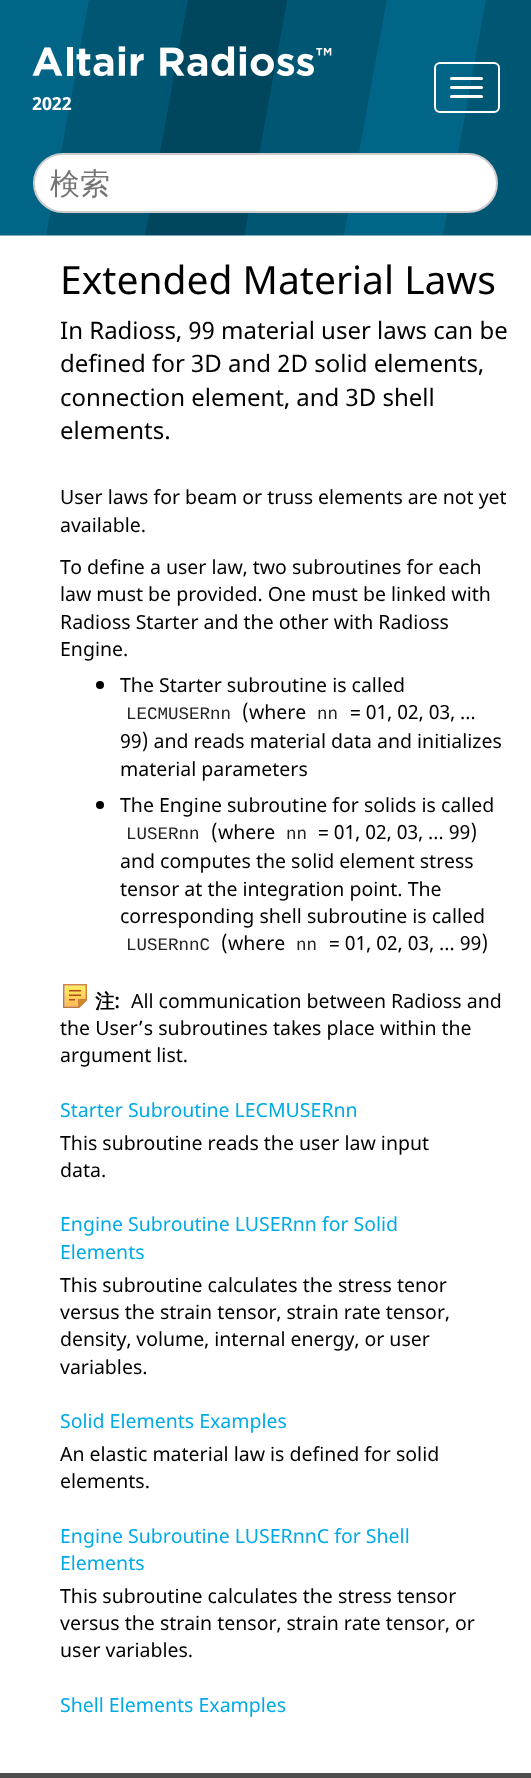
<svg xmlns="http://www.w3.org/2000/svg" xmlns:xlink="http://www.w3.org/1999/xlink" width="531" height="1778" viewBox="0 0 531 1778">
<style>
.cls-1{font:bold 18px Noto Sans;fill:#ffffff}
.cls-2{font:500 30px WenQuanYi Zen Hei;fill:#757575}
.cls-3{font:39px Noto Sans;fill:#000000}
.cls-4{font:24px Noto Sans;fill:#000000}
.cls-5{font:19.5px Noto Sans;fill:#000000}
.cls-6{font:17.5px Liberation Mono;fill:#222222}
.cls-7{font:bold 19.5px WenQuanYi Zen Hei;fill:#000000}
.cls-8{font:bold 19.5px 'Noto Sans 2';fill:#000000}
.cls-9{font:19.5px Noto Sans;fill:#00aae6}
</style>
<rect width="100%" height="100%" fill="#ffffff"/>
<image xlink:href="image0.png" x="0" y="0" width="531" height="236"/>
<image xlink:href="image1.png" x="32" y="46" width="300" height="31"/>
<rect fill="none" stroke="#ffffff" stroke-width="2" x="435" y="63" width="64" height="49" rx="5"/>
<rect fill="#ffffff" x="450" y="77" width="33" height="3" rx="1.5"/>
<rect fill="#ffffff" x="450" y="86" width="33" height="3" rx="1.5"/>
<rect fill="#ffffff" x="450" y="95" width="33" height="3" rx="1.5"/>
<rect fill="#ffffff" stroke="#cccccc" stroke-width="2" x="34" y="154" width="463" height="58" rx="29"/>
<circle fill="#000000" cx="100" cy="685" r="4"/>
<circle fill="#000000" cx="100" cy="805" r="4"/>
<image xlink:href="image2.png" x="63" y="984" width="24" height="24"/>
<rect fill="#4d4d4d" x="0" y="1773" width="531" height="5"/>
<text class="cls-1" x="32" y="110">2022</text>
<text class="cls-2" x="50" y="194">検索</text>
<text class="cls-3" x="60" y="294">Extended Material Laws</text>
<text class="cls-4"><tspan x="60" y="339">In Radioss, 99 material user laws can be</tspan><tspan x="60" y="372">defined for 3D and 2D solid elements,</tspan><tspan x="60" y="406">connection element, and 3D shell</tspan><tspan x="60" y="439">elements.</tspan></text>
<text class="cls-5"><tspan x="60" y="504">User laws for beam or truss elements are not yet</tspan><tspan x="60" y="532">available.</tspan></text>
<text class="cls-5"><tspan x="60" y="574">To define a user law, two subroutines for each</tspan><tspan x="60" y="601">law must be provided. One must be linked with</tspan><tspan x="60" y="629">Radioss Starter and the other with Radioss</tspan><tspan x="60" y="656">Engine.</tspan></text>
<text class="cls-5" x="120" y="692">The Starter subroutine is called</text>
<text class="cls-6" x="126" y="719">LECMUSERnn</text>
<text class="cls-5" x="242" y="719">(where</text>
<text class="cls-6" x="317" y="719">nn</text>
<text class="cls-5" x="350" y="719">= 01, 02, 03, …</text>
<text class="cls-5"><tspan x="120" y="748">99) and reads material data and initializes</tspan><tspan x="120" y="776">material parameters</tspan><tspan x="120" y="812">The Engine subroutine for solids is called</tspan></text>
<text class="cls-6" x="126" y="839">LUSERnn</text>
<text class="cls-5" x="211" y="839">(where</text>
<text class="cls-6" x="286" y="839">nn</text>
<text class="cls-5" x="318" y="839">= 01, 02, 03, … 99)</text>
<text class="cls-5"><tspan x="120" y="868">and computes the solid element stress</tspan><tspan x="120" y="896">tensor at the integration point. The</tspan><tspan x="120" y="923">corresponding shell subroutine is called</tspan></text>
<text class="cls-6" x="126" y="950">LUSERnnC</text>
<text class="cls-5" x="221" y="950">(where</text>
<text class="cls-6" x="296" y="950">nn</text>
<text class="cls-5" x="329" y="950">= 01, 02, 03, … 99)</text>
<text class="cls-7" x="95" y="1008">注</text>
<text class="cls-8" x="114" y="1008">:</text>
<text class="cls-5" x="131" y="1008">All communication between Radioss and</text>
<text class="cls-5"><tspan x="60" y="1035">the User’s subroutines takes place within the</tspan><tspan x="60" y="1062">argument list.</tspan></text>
<text class="cls-9" x="60" y="1117">Starter Subroutine LECMUSERnn</text>
<text class="cls-5"><tspan x="60" y="1150">This subroutine reads the user law input</tspan><tspan x="60" y="1177">data.</tspan></text>
<text class="cls-9"><tspan x="60" y="1231">Engine Subroutine LUSERnn for Solid</tspan><tspan x="60" y="1259">Elements</tspan></text>
<text class="cls-5"><tspan x="60" y="1292">This subroutine calculates the stress tenor</tspan><tspan x="60" y="1319">versus the strain tensor, strain rate tensor,</tspan><tspan x="60" y="1346">density, volume, internal energy, or user</tspan><tspan x="60" y="1374">variables.</tspan></text>
<text class="cls-9" x="60" y="1428">Solid Elements Examples</text>
<text class="cls-5"><tspan x="60" y="1461">An elastic material law is defined for solid</tspan><tspan x="60" y="1488">elements.</tspan></text>
<text class="cls-9"><tspan x="60" y="1543">Engine Subroutine LUSERnnC for Shell</tspan><tspan x="60" y="1570">Elements</tspan></text>
<text class="cls-5"><tspan x="60" y="1603">This subroutine calculates the stress tensor</tspan><tspan x="60" y="1630">versus the strain tensor, strain rate tensor, or</tspan><tspan x="60" y="1657">user variables.</tspan></text>
<text class="cls-9" x="60" y="1712">Shell Elements Examples</text>
</svg>
